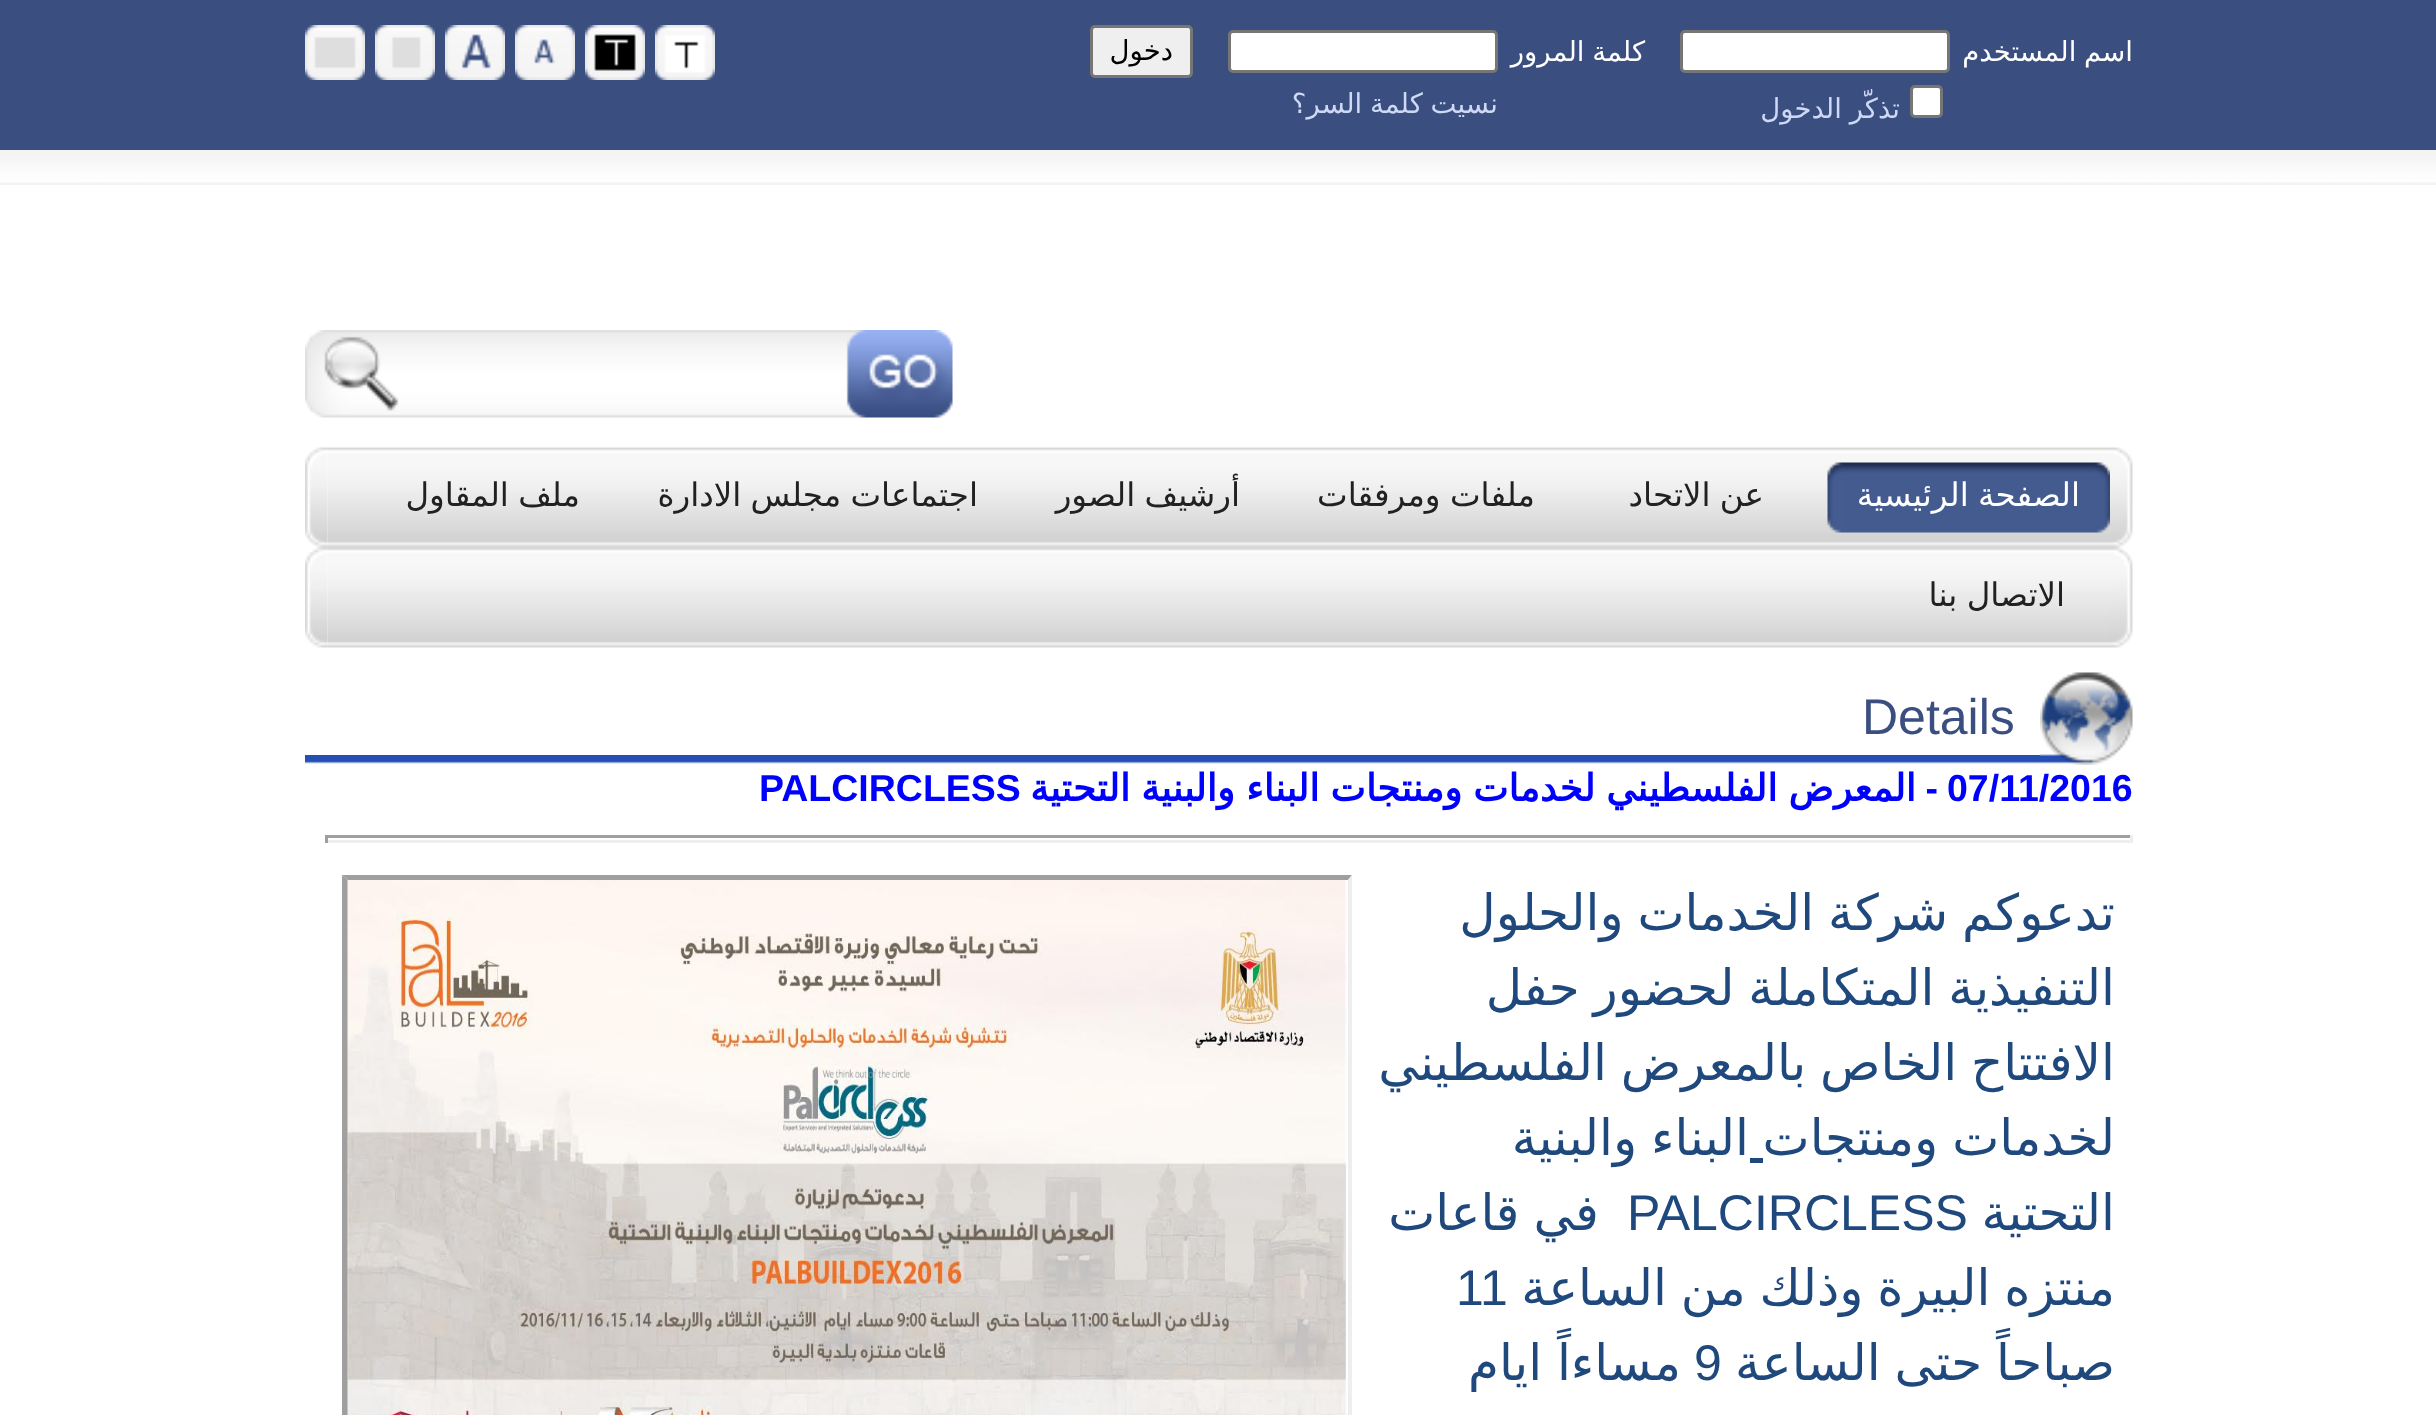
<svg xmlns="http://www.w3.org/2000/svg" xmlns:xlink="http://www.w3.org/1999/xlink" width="2436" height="1415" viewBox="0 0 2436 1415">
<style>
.cls-1{font:27.5px DejaVu Sans;direction:rtl;fill:#ffffff}
.cls-2{font:27.5px DejaVu Sans;direction:rtl;fill:#000000}
.cls-3{font:27.5px DejaVu Sans;direction:rtl;fill:#ced9f5}
.cls-4{font:32.5px DejaVu Sans;direction:rtl;fill:#ffffff}
.cls-5{font:32.5px DejaVu Sans;direction:rtl;fill:#212121}
.cls-6{font:50px Liberation Sans;fill:#3a4e80}
.cls-7{font:bold 37.5px Liberation Sans;fill:#0000ff}
.cls-8{font:bold 37.5px Liberation Sans;direction:rtl;fill:#0000ff}
.cls-9{font:bold 37.5px DejaVu Sans;direction:rtl;fill:#0000ff}
.cls-10{font:50px DejaVu Sans;direction:rtl;fill:#1f497d}
.cls-11{font:50px Liberation Sans;fill:#1f497d}
</style>
<rect width="100%" height="100%" fill="#ffffff"/>
<rect fill="#3a4e80" x="0" y="0" width="2436" height="150"/>
<rect fill="#ffffff" stroke="#767676" stroke-width="3" x="1681.5" y="31.5" width="267" height="40" rx="3.5"/>
<rect fill="#ffffff" stroke="#767676" stroke-width="3" x="1229.5" y="31.5" width="267" height="40" rx="3.5"/>
<rect fill="#efefef" stroke="#767676" stroke-width="3" x="1091.5" y="26.5" width="100" height="50" rx="3.5"/>
<rect fill="#ffffff" stroke="#767676" stroke-width="3" x="1911.5" y="86.5" width="30" height="30" rx="3.5"/>
<image xlink:href="image0.png" x="655" y="25" width="60" height="55"/>
<image xlink:href="image1.png" x="585" y="25" width="60" height="55"/>
<image xlink:href="image2.png" x="515" y="25" width="60" height="55"/>
<image xlink:href="image3.png" x="445" y="25" width="60" height="55"/>
<image xlink:href="image4.png" x="375" y="25" width="60" height="55"/>
<image xlink:href="image5.png" x="305" y="25" width="60" height="55"/>
<image xlink:href="image6.png" x="0" y="150" width="2436" height="35"/>
<image xlink:href="image7.png" x="305" y="330" width="648" height="88"/>
<image xlink:href="image8.png" x="2110" y="447" width="23" height="201"/>
<image xlink:href="image9.png" x="305" y="447" width="23" height="201"/>
<image xlink:href="image10.png" x="327" y="447" width="1783" height="201"/>
<image xlink:href="image11.png" x="1827" y="462" width="18" height="71"/>
<image xlink:href="image12.png" x="1845" y="462" width="265" height="71"/>
<image xlink:href="image13.png" x="2040" y="672" width="93" height="93"/>
<image xlink:href="image14.png" x="305" y="755" width="1735" height="9"/>
<rect fill="#9f9f9f" x="325" y="835" width="1808" height="3"/>
<rect fill="#eeeeee" x="2130" y="835" width="3" height="8"/>
<rect fill="#eeeeee" x="325" y="840" width="1808" height="3"/>
<rect fill="#9f9f9f" x="325" y="835" width="3" height="8"/>
<rect fill="#1f497d" x="1750" y="1158" width="13" height="5"/>
<path fill="#9f9f9f" d="M342 875H1352L1348 880H348Z"/>
<path fill="#eeeeee" d="M1352 875V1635L1348 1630V880Z"/>
<path fill="#9f9f9f" d="M342 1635V875L348 880V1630Z"/>
<image xlink:href="image15.png" x="347" y="880" width="1000" height="535"/>
<text class="cls-1" x="2133" y="61" word-spacing="-1">اسم المستخدم</text>
<text class="cls-1" x="1645" y="61" word-spacing="-1">كلمة المرور</text>
<text class="cls-2" x="1173" y="60">دخول</text>
<text class="cls-3" x="1900" y="118" word-spacing="-1">تذكّر الدخول</text>
<text class="cls-3" x="1498" y="113" word-spacing="-1">نسيت كلمة السر؟</text>
<text class="cls-4" x="2080" y="506" word-spacing="-1">الصفحة الرئيسية</text>
<text class="cls-5" x="1764" y="506" word-spacing="-1">عن الاتحاد</text>
<text class="cls-5" x="1535" y="506" word-spacing="-1">ملفات ومرفقات</text>
<text class="cls-5" x="1240" y="506" word-spacing="-1">أرشيف الصور</text>
<text class="cls-5" x="978" y="506" word-spacing="-1">اجتماعات مجلس الادارة</text>
<text class="cls-5" x="580" y="506" word-spacing="-1">ملف المقاول</text>
<text class="cls-5" x="2065" y="606" word-spacing="-1">الاتصال بنا</text>
<text class="cls-6" x="1862" y="734">Details</text>
<text class="cls-7" x="1947" y="801">07/11/2016</text>
<text class="cls-8" x="1938" y="801">-</text>
<text class="cls-9" x="1916" y="801" word-spacing="-1">المعرض الفلسطيني لخدمات ومنتجات البناء والبنية التحتية</text>
<text class="cls-7" x="759" y="801">PALCIRCLESS</text>
<text class="cls-10"><tspan x="2115" y="930" word-spacing="-2">تدعوكم شركة الخدمات والحلول</tspan><tspan x="2115" y="1005" word-spacing="-2">التنفيذية المتكاملة لحضور حفل</tspan><tspan x="2115" y="1080" word-spacing="-2">الافتتاح الخاص بالمعرض الفلسطيني</tspan><tspan x="2115" y="1155" word-spacing="-2">لخدمات ومنتجات</tspan></text>
<text class="cls-10" x="1749" y="1155" word-spacing="-2">البناء والبنية</text>
<text class="cls-10" x="2115" y="1230">التحتية</text>
<text class="cls-11" x="1627" y="1230">PALCIRCLESS</text>
<text class="cls-10" x="1599" y="1230" word-spacing="-2">في قاعات</text>
<text class="cls-10" x="2115" y="1305" word-spacing="-2">منتزه البيرة وذلك من الساعة</text>
<text class="cls-11" x="1456" y="1305">11</text>
<text class="cls-10" x="2115" y="1380" word-spacing="-2">صباحاً حتى الساعة</text>
<text class="cls-11" x="1694" y="1380">9</text>
<text class="cls-10" x="1681" y="1380" word-spacing="-1">مساءاً ايام</text>
</svg>
